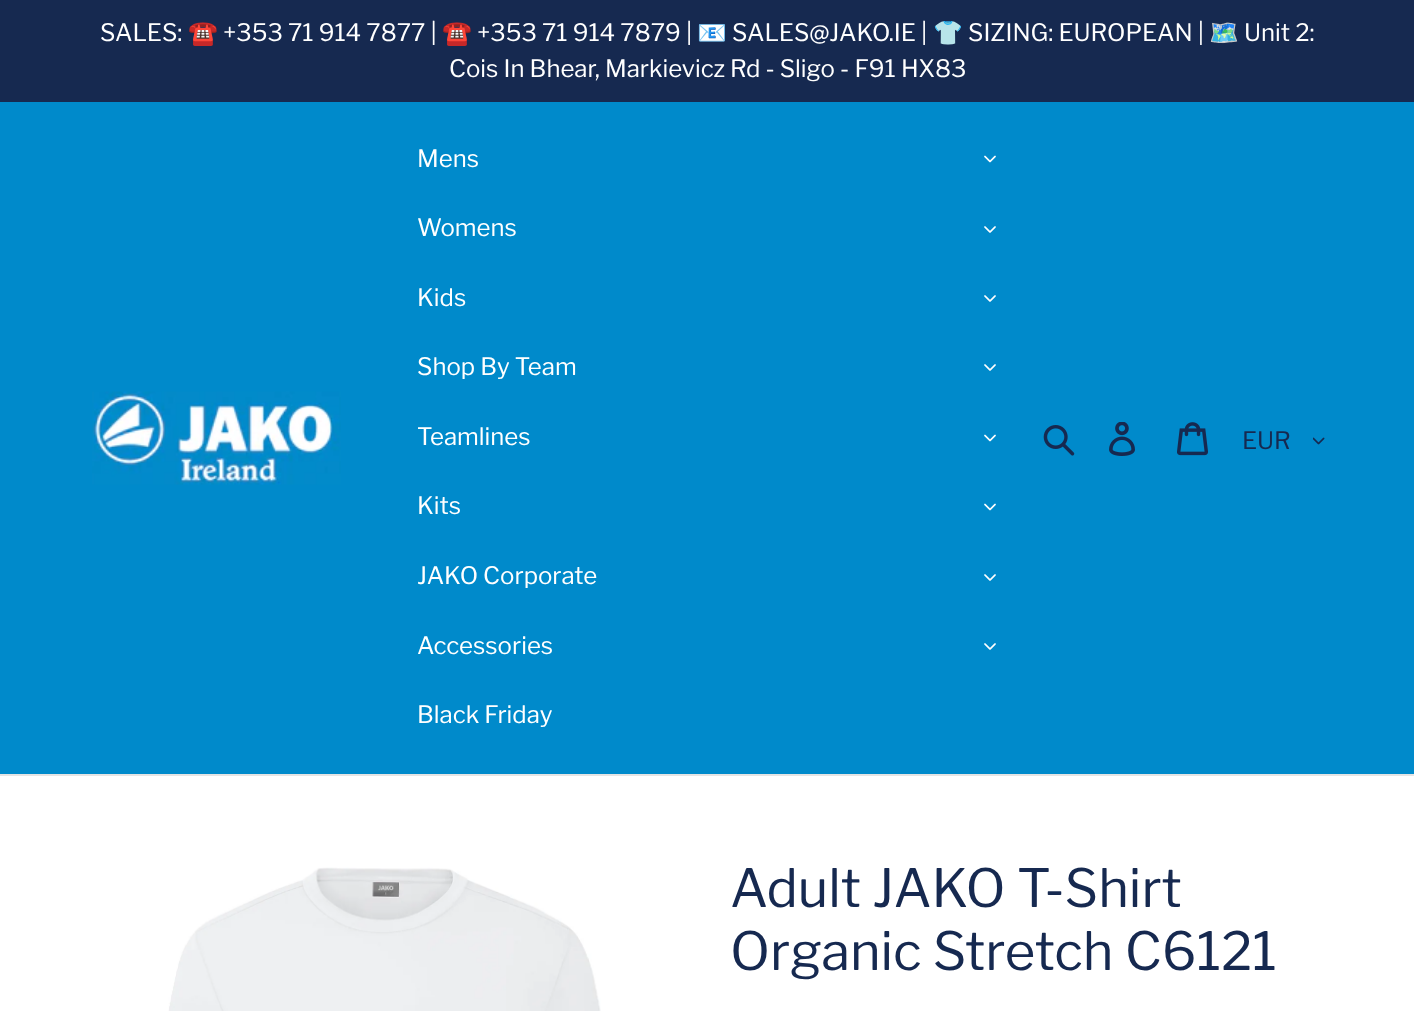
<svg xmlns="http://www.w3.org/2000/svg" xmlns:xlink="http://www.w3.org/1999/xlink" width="1414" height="1011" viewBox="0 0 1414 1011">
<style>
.cls-1{font:24px Libre Franklin;fill:#ffffff}
.cls-2{font:24px Noto Color Emoji;fill:#ffffff}
.cls-3{font:24px Libre Franklin;fill:#162950}
.cls-4{font:52.5px Libre Franklin;fill:#162950}
</style>
<rect width="100%" height="100%" fill="#ffffff"/>
<rect fill="#162950" x="0" y="0" width="1414" height="102"/>
<rect fill="#008acb" x="0" y="102" width="1414" height="672"/>
<rect fill="#e4e4e4" x="0" y="774" width="1414" height="2"/>
<image xlink:href="image0.png" x="92" y="391" width="249" height="94"/>
<image xlink:href="image1.png" x="984" y="155" width="12" height="8"/>
<image xlink:href="image2.png" x="984" y="226" width="12" height="7"/>
<image xlink:href="image2.png" x="984" y="295" width="12" height="7"/>
<image xlink:href="image2.png" x="984" y="364" width="12" height="7"/>
<image xlink:href="image1.png" x="984" y="434" width="12" height="8"/>
<image xlink:href="image1.png" x="984" y="503" width="12" height="8"/>
<image xlink:href="image2.png" x="984" y="574" width="12" height="7"/>
<image xlink:href="image2.png" x="984" y="643" width="12" height="7"/>
<image xlink:href="image3.png" x="1043" y="425" width="32" height="31"/>
<image xlink:href="image4.png" x="1109" y="422" width="26" height="34"/>
<image xlink:href="image5.png" x="1177" y="422" width="31" height="34"/>
<image xlink:href="image6.png" x="1313" y="437" width="12" height="8"/>
<image xlink:href="image7.png" x="168" y="867" width="433" height="144"/>
<text class="cls-1" x="100" y="41">SALES:</text>
<text class="cls-2" x="188" y="41">☎️</text>
<text class="cls-1" x="223" y="41">+353 71 914 7877 |</text>
<text class="cls-2" x="442" y="41">☎️</text>
<text class="cls-1" x="477" y="41">+353 71 914 7879 |</text>
<text class="cls-2" x="697" y="41">📧</text>
<text class="cls-1" x="732" y="41">SALES@JAKO.IE |</text>
<text class="cls-2" x="933" y="41">👕</text>
<text class="cls-1" x="968" y="41">SIZING: EUROPEAN |</text>
<text class="cls-2" x="1209" y="41">🗺️</text>
<text class="cls-1" x="1244" y="41">Unit 2:</text>
<text class="cls-1" x="449" y="77">Cois In Bhear, Markievicz Rd - Sligo - F91 HX83</text>
<text class="cls-1" x="417" y="167">Mens</text>
<text class="cls-1" x="417" y="236">Womens</text>
<text class="cls-1" x="417" y="306">Kids</text>
<text class="cls-1" x="417" y="375">Shop By Team</text>
<text class="cls-1" x="417" y="445">Teamlines</text>
<text class="cls-1" x="417" y="514">Kits</text>
<text class="cls-1" x="417" y="584">JAKO Corporate</text>
<text class="cls-1" x="417" y="654">Accessories</text>
<text class="cls-1" x="417" y="723">Black Friday</text>
<text class="cls-3" x="1242" y="449">EUR</text>
<text class="cls-4"><tspan x="730" y="907">Adult JAKO T-Shirt</tspan><tspan x="730" y="970">Organic Stretch C6121</tspan></text>
</svg>
